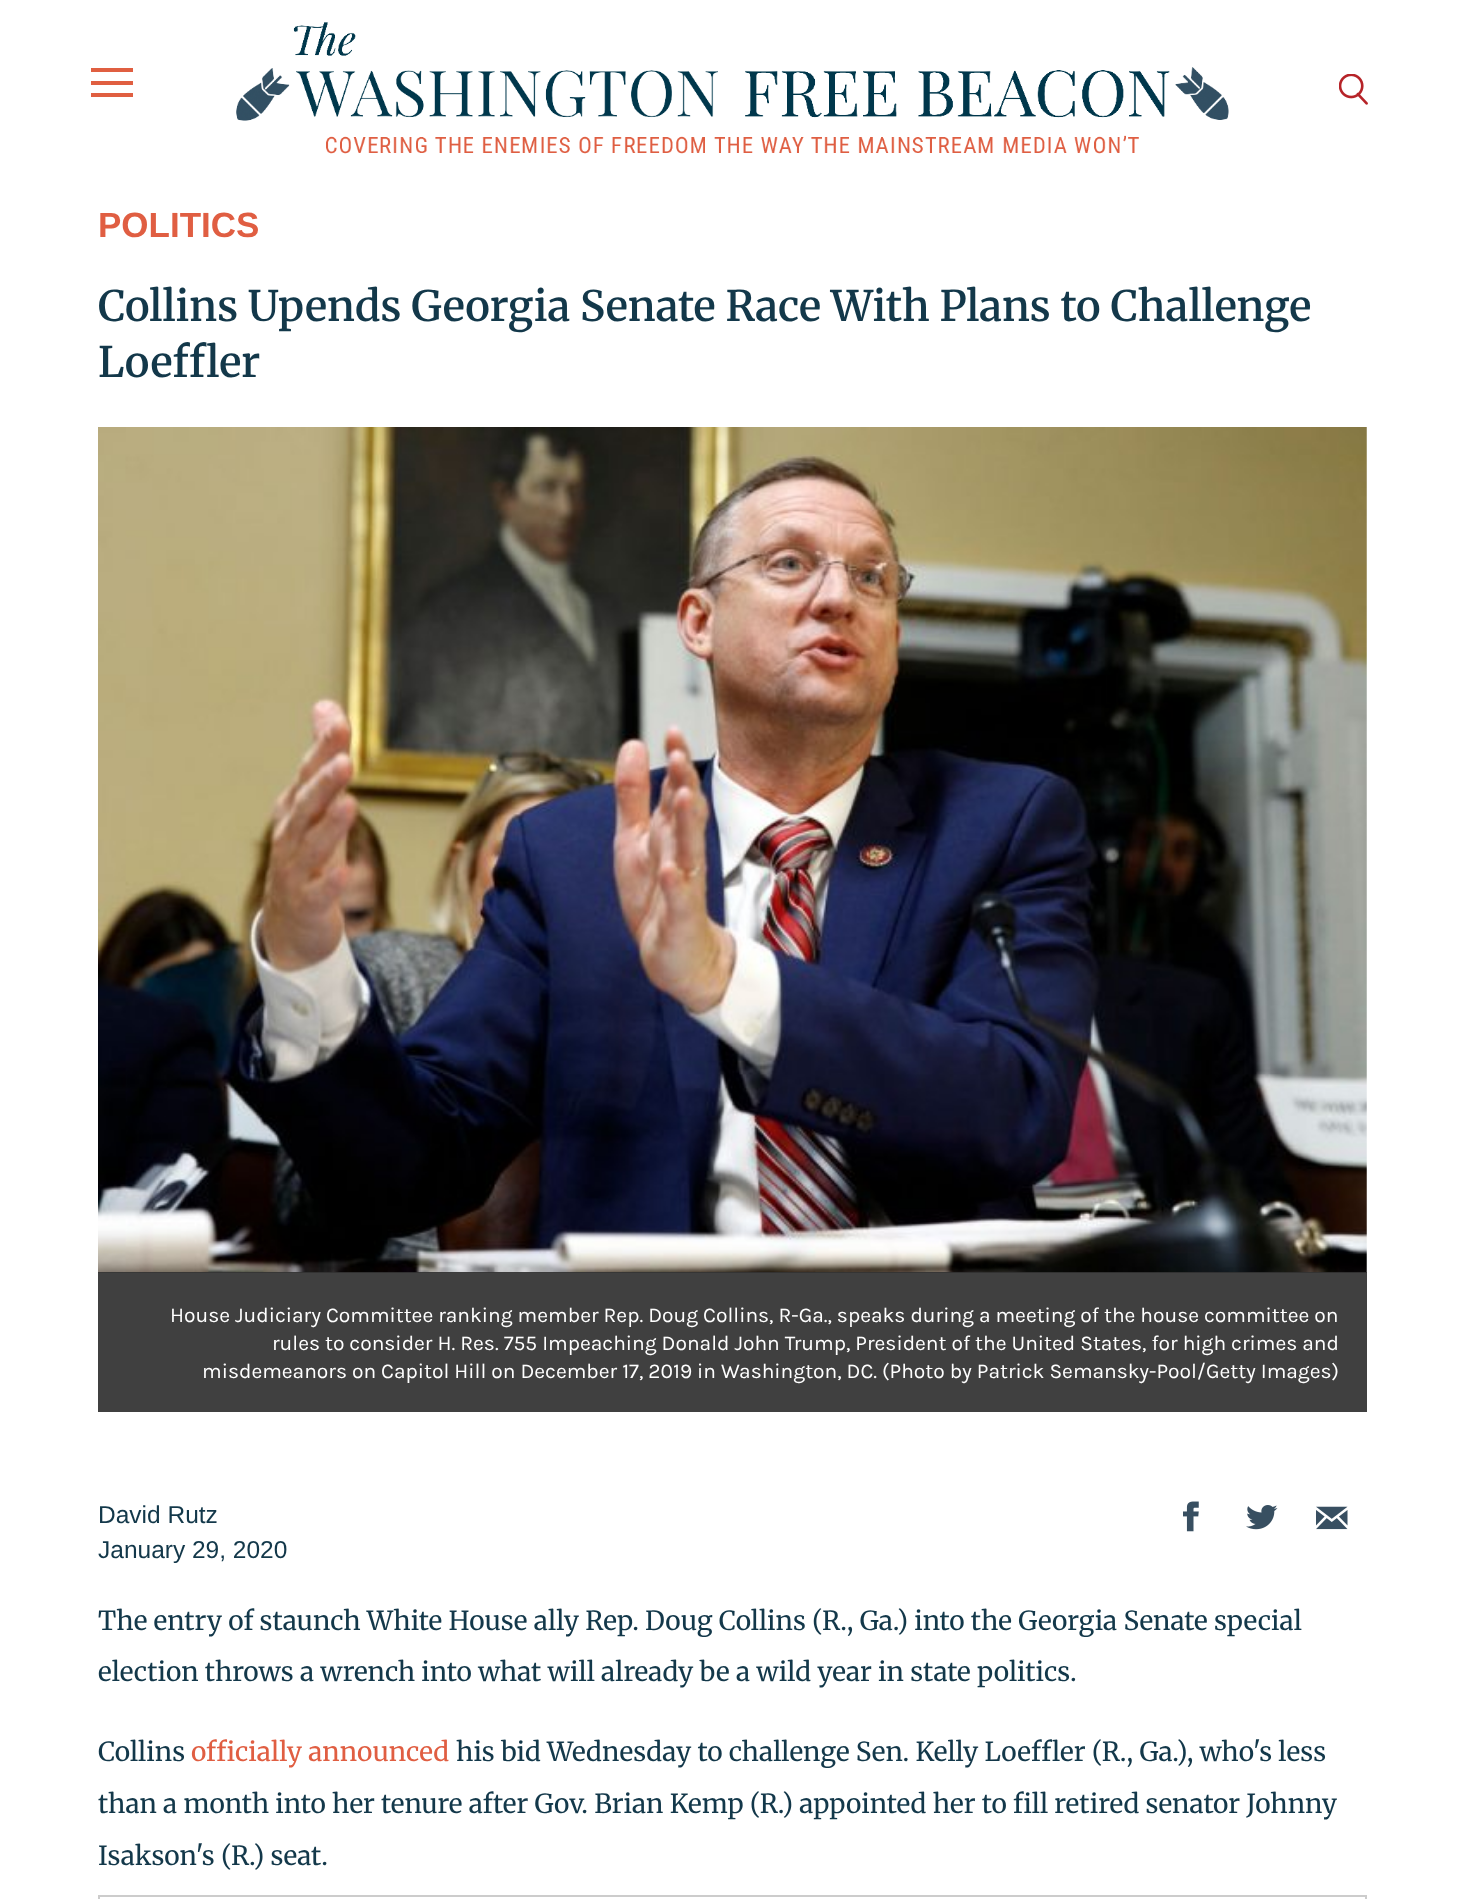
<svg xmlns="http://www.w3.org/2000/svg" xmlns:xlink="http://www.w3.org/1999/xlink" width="1464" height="1899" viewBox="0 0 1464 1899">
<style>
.cls-1{font:bold 35px Liberation Sans;fill:#e05e42}
.cls-2{font:600 42px Merriweather;fill:#13384a}
.cls-3{font:21px Karla;fill:#ffffff}
.cls-4{font:24.5px Liberation Sans;fill:#13384a}
.cls-5{font:26.25px Merriweather;fill:#13384a}
.cls-6{font:26.25px Merriweather;fill:#e05e42}
</style>
<rect width="100%" height="100%" fill="#ffffff"/>
<rect fill="#e05f41" x="91" y="68" width="42" height="4"/>
<rect fill="#e05f41" x="91" y="81" width="42" height="4"/>
<rect fill="#e05f41" x="91" y="93" width="42" height="4"/>
<image xlink:href="image0.png" x="236" y="22" width="993" height="132"/>
<image xlink:href="image1.png" x="1339" y="74" width="29" height="31"/>
<image xlink:href="image2.png" x="98" y="427" width="1269" height="846"/>
<rect fill="#000000" fill-opacity="0.75" x="98" y="1272" width="1269" height="140"/>
<image xlink:href="image3.png" x="1183" y="1501" width="16" height="31"/>
<image xlink:href="image4.png" x="1246" y="1505" width="32" height="25"/>
<image xlink:href="image5.png" x="1316" y="1506" width="32" height="24"/>
<rect fill="none" stroke="#cccccc" stroke-width="2" x="99" y="1896" width="1267" height="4"/>
<text class="cls-1" x="98" y="237">POLITICS</text>
<text class="cls-2"><tspan x="98" y="321">Collins Upends Georgia Senate Race With Plans to Challenge</tspan><tspan x="98" y="377">Loeffler</tspan></text>
<text class="cls-3" x="170" y="1322">House Judiciary Committee ranking member Rep. Doug Collins, R-Ga., speaks during a meeting of the house committee on</text>
<text class="cls-3" x="272" y="1350">rules to consider H. Res. 755 Impeaching Donald John Trump, President of the United States, for high crimes and</text>
<text class="cls-3" x="202" y="1378">misdemeanors on Capitol Hill on December 17, 2019 in Washington, DC. (Photo by Patrick Semansky-Pool/Getty Images)</text>
<text class="cls-4"><tspan x="98" y="1523">David Rutz</tspan><tspan x="98" y="1558">January 29, 2020</tspan></text>
<text class="cls-5"><tspan x="98" y="1630">The entry of staunch White House ally Rep. Doug Collins (R., Ga.) into the Georgia Senate special</tspan><tspan x="98" y="1681">election throws a wrench into what will already be a wild year in state politics.</tspan></text>
<text class="cls-5" x="98" y="1761">Collins</text>
<text class="cls-6" x="191" y="1761">officially announced</text>
<text class="cls-5" x="456" y="1761">his bid Wednesday to challenge Sen. Kelly Loeffler (R., Ga.), who's less</text>
<text class="cls-5"><tspan x="98" y="1813">than a month into her tenure after Gov. Brian Kemp (R.) appointed her to fill retired senator Johnny</tspan><tspan x="98" y="1865">Isakson's (R.) seat.</tspan></text>
</svg>
